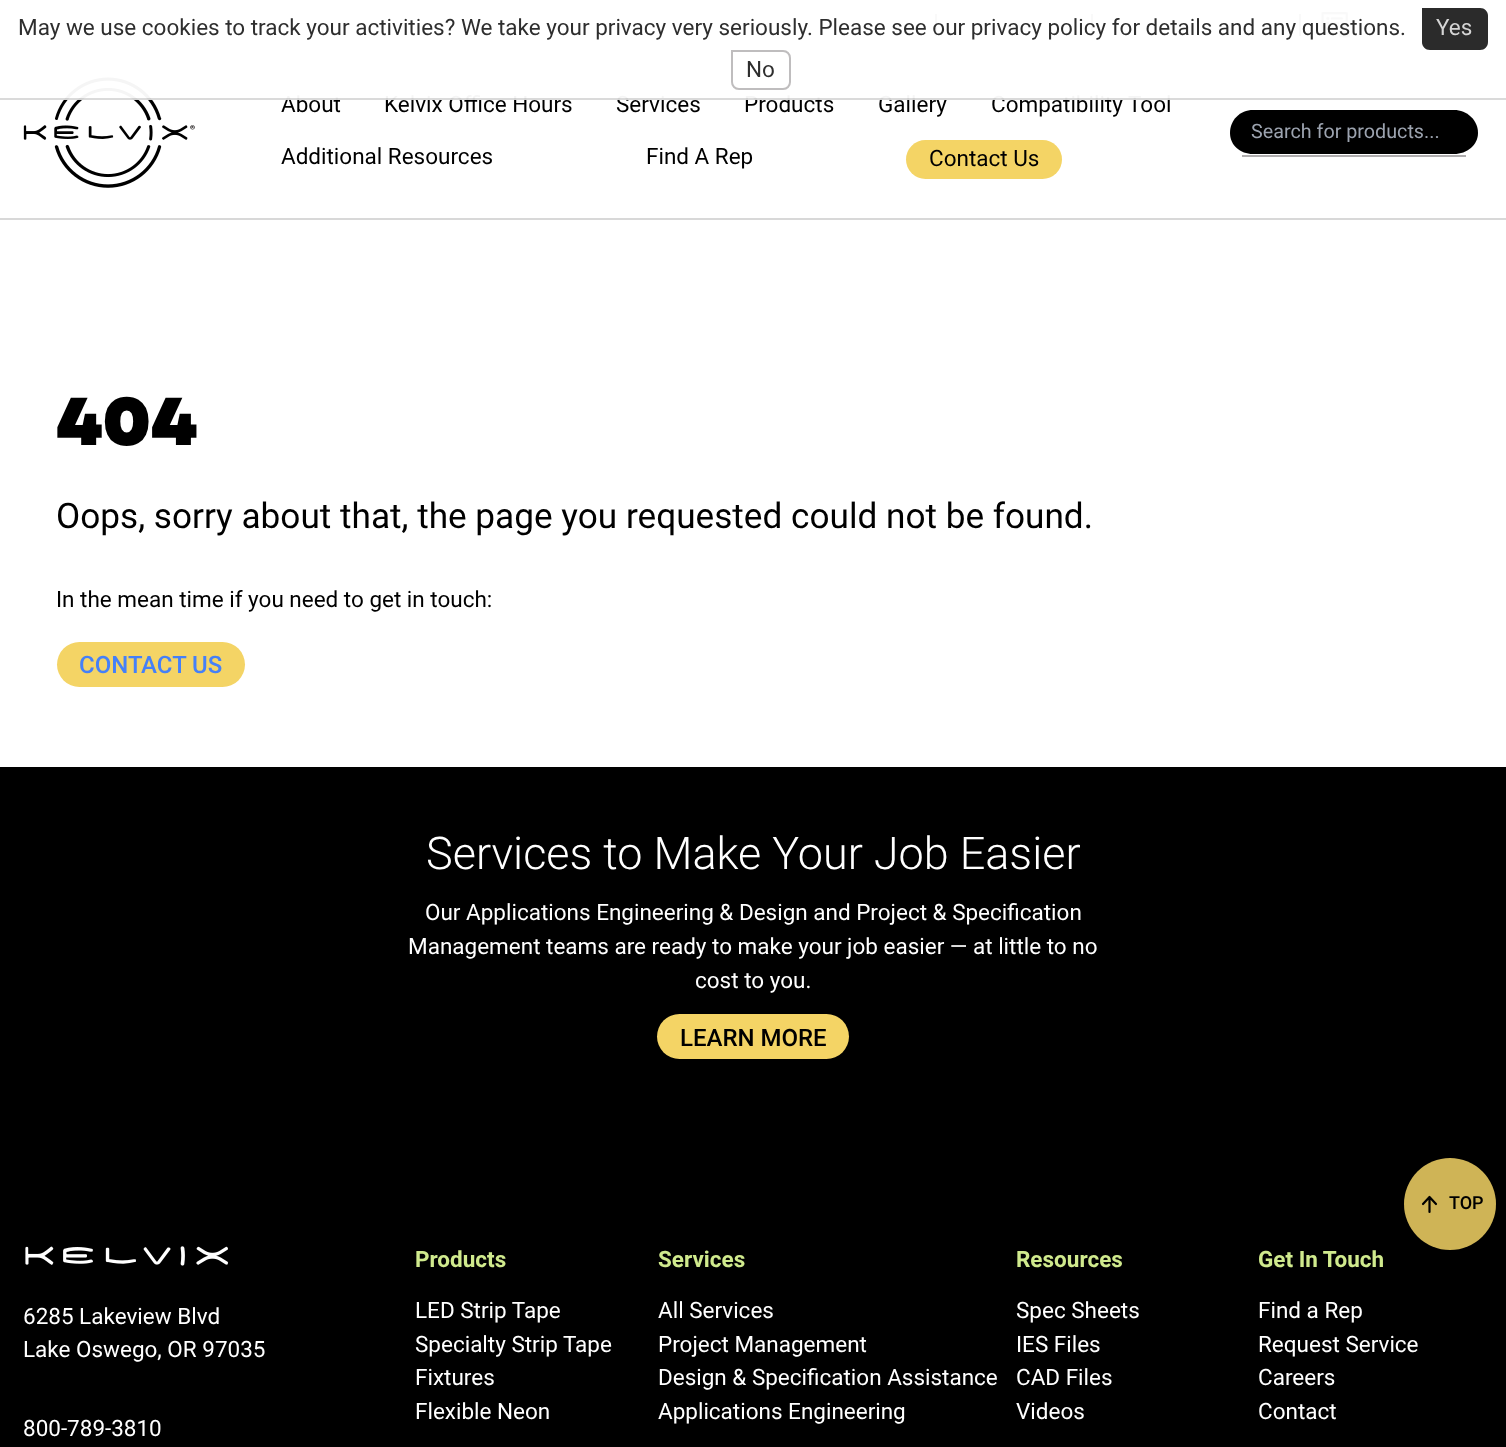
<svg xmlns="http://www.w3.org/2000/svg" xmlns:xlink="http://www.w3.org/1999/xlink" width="1506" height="1447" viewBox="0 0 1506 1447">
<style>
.cls-1{font:22.5px Roboto;fill:#000000}
.cls-2{font:22.5px Roboto;fill:#2e2e2e}
.cls-3{font:22.5px Roboto;fill:#d5d5d5}
.cls-4{font:19.75px Roboto;fill:#9ca3af}
.cls-5{font:900 67.5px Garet;fill:#000000}
.cls-6{font:35.2px Roboto;fill:#000000}
.cls-7{font:500 24px Roboto;fill:#4580f8}
.cls-8{font:300 45px Roboto;fill:#ffffff}
.cls-9{font:22.5px Roboto;fill:#ffffff}
.cls-10{font:500 24px Roboto;fill:#000000}
.cls-11{font:500 18px Roboto;fill:#000000}
.cls-12{font:bold 22.5px Roboto;fill:#d0ea8d}
</style>
<rect width="100%" height="100%" fill="#ffffff"/>
<rect fill="#d8d8d8" x="0" y="218" width="1506" height="2"/>
<rect fill="#ededed" x="0" y="0" width="1506" height="50"/>
<rect fill="#707070" x="935" y="14" width="2" height="22"/>
<rect fill="#707070" x="1091" y="14" width="2" height="22"/>
<rect fill="#707070" x="1299" y="14" width="2" height="22"/>
<image xlink:href="image0.png" x="1321" y="12" width="29" height="26"/>
<image xlink:href="image1.png" x="23" y="77" width="172" height="111"/>
<rect fill="#f4d465" x="906" y="140" width="156" height="39" rx="19.5"/>
<path fill="#000000" d="M1253 110H1454C1467 110 1478 120 1478 133C1478 145 1467 154 1454 154H1253C1240 154 1230 145 1230 133C1230 120 1240 110 1253 110Z"/>
<rect fill="#afadae" x="1242" y="155" width="224" height="2"/>
<rect fill="#f4d465" x="57" y="642" width="188" height="45" rx="22.5"/>
<rect fill="#000000" x="0" y="767" width="1506" height="680"/>
<rect fill="#f4d465" x="657" y="1014" width="192" height="45" rx="22.5"/>
<circle fill="#cfb456" cx="1450" cy="1204" r="46"/>
<path fill="none" stroke="#000000" stroke-width="2.2" stroke-linecap="round" stroke-linejoin="round" d="M1423 1204L1429.5 1197L1436 1204M1429.5 1198V1212"/>
<image xlink:href="image2.png" x="25" y="1246" width="204" height="20"/>
<text class="cls-1" x="281" y="112">About</text>
<text class="cls-1" x="384" y="112">Kelvix Office Hours</text>
<text class="cls-1" x="616" y="112">Services</text>
<text class="cls-1" x="744" y="112">Products</text>
<text class="cls-1" x="878" y="112">Gallery</text>
<text class="cls-1" x="991" y="112">Compatibility Tool</text>
<rect fill="#ffffff" fill-opacity="0.8" x="0" y="0" width="1506" height="98"/>
<path fill="none" stroke="#bfbdbe" stroke-width="2" d="M732 51H783C787 51 790 54 790 58V82C790 86 787 89 783 89H739C735 89 732 86 732 82Z"/>
<path fill="#000000" fill-opacity="0.8" d="M1422 8H1480C1484.5 8 1488 11.5 1488 16V42C1488 46.5 1484.5 50 1480 50H1430C1425.5 50 1422 46.5 1422 42Z"/>
<rect fill="#ffffff" fill-opacity="0.8" x="0" y="0" width="1506" height="98"/>
<path fill="#ffffff" fill-opacity="0.8" d="M731 50H783C787.5 50 791 53.5 791 58V82C791 86.5 787.5 90 783 90H739C734.5 90 731 86.5 731 82Z"/>
<path fill="none" stroke="#afadae" stroke-opacity="0.8" stroke-width="2" d="M732 51H783C787 51 790 54 790 58V82C790 86 787 89 783 89H739C735 89 732 86 732 82Z"/>
<text class="cls-2" x="746" y="77">No</text>
<path fill="#000000" fill-opacity="0.8" d="M1422 8H1480C1484.5 8 1488 11.5 1488 16V42C1488 46.5 1484.5 50 1480 50H1430C1425.5 50 1422 46.5 1422 42Z"/>
<text class="cls-3" x="1436" y="35">Yes</text>
<text class="cls-2" x="18" y="35">May we use cookies to track your activities? We take your privacy very seriously. Please see our privacy policy for details and any questions.</text>
<rect fill="#d8d8d8" fill-opacity="0.8" x="0" y="98" width="1506" height="2"/>
<rect fill="#d8d8d8" fill-opacity="0.8" x="0" y="98" width="1506" height="2"/>
<text class="cls-1" x="281" y="164">Additional Resources</text>
<text class="cls-1" x="646" y="164">Find A Rep</text>
<text class="cls-1" x="929" y="166">Contact Us</text>
<text class="cls-4" x="1251" y="138">Search for products...</text>
<text class="cls-5" x="56" y="445">404</text>
<text class="cls-6" x="56" y="528">Oops, sorry about that, the page you requested could not be found.</text>
<text class="cls-1" x="56" y="607">In the mean time if you need to get in touch:</text>
<text class="cls-7" x="79" y="673">CONTACT US</text>
<text class="cls-8" x="426" y="869">Services to Make Your Job Easier</text>
<text class="cls-9" x="425" y="920">Our Applications Engineering &amp; Design and Project &amp; Specification</text>
<text class="cls-9" x="408" y="954">Management teams are ready to make your job easier — at little to no</text>
<text class="cls-9" x="695" y="988">cost to you.</text>
<text class="cls-10" x="680" y="1046">LEARN MORE</text>
<text class="cls-11" x="1449" y="1209">TOP</text>
<text class="cls-9"><tspan x="23" y="1324">6285 Lakeview Blvd</tspan><tspan x="23" y="1357">Lake Oswego, OR 97035</tspan></text>
<text class="cls-9" x="23" y="1436">800-789-3810</text>
<text class="cls-12" x="415" y="1267">Products</text>
<text class="cls-9"><tspan x="415" y="1318">LED Strip Tape</tspan><tspan x="415" y="1352">Specialty Strip Tape</tspan><tspan x="415" y="1385">Fixtures</tspan><tspan x="415" y="1419">Flexible Neon</tspan></text>
<text class="cls-12" x="658" y="1267">Services</text>
<text class="cls-9"><tspan x="658" y="1318">All Services</tspan><tspan x="658" y="1352">Project Management</tspan><tspan x="658" y="1385">Design &amp; Specification Assistance</tspan><tspan x="658" y="1419">Applications Engineering</tspan></text>
<text class="cls-12" x="1016" y="1267">Resources</text>
<text class="cls-9"><tspan x="1016" y="1318">Spec Sheets</tspan><tspan x="1016" y="1352">IES Files</tspan><tspan x="1016" y="1385">CAD Files</tspan><tspan x="1016" y="1419">Videos</tspan></text>
<text class="cls-12" x="1258" y="1267">Get In Touch</text>
<text class="cls-9"><tspan x="1258" y="1318">Find a Rep</tspan><tspan x="1258" y="1352">Request Service</tspan><tspan x="1258" y="1385">Careers</tspan><tspan x="1258" y="1419">Contact</tspan></text>
</svg>
